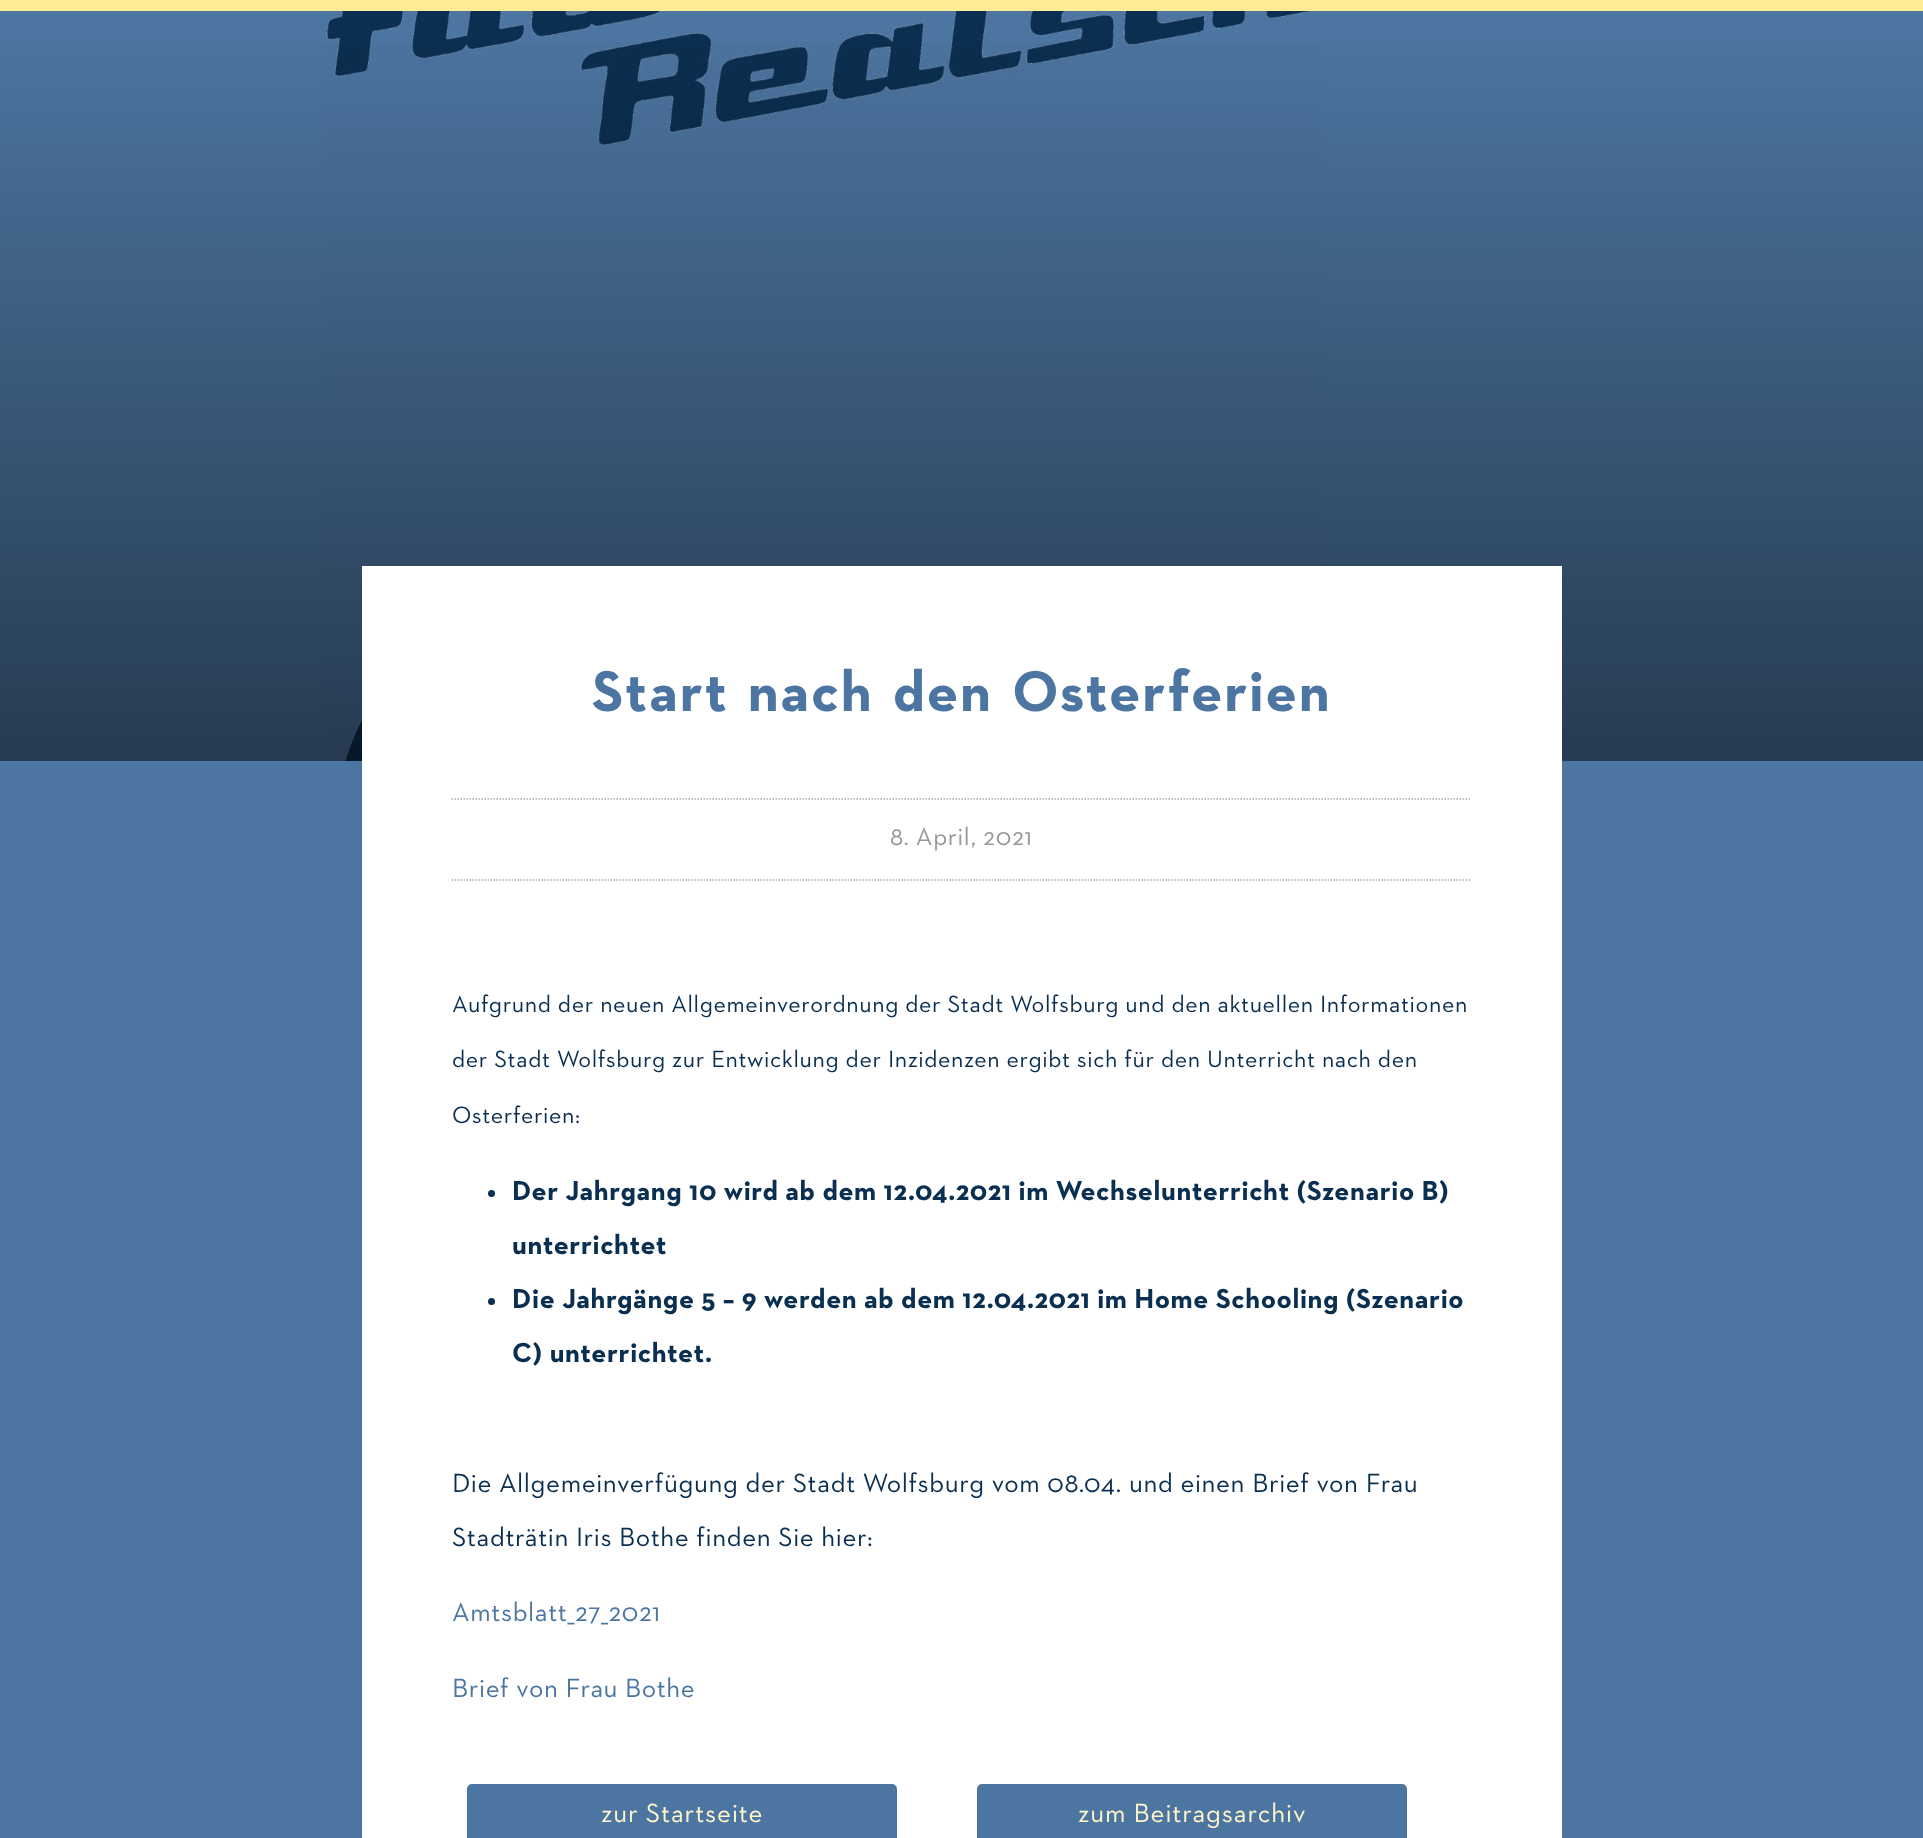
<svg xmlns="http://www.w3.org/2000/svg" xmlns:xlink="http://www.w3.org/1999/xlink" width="1923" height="1838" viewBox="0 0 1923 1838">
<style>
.cls-1{font:bold 58.5px 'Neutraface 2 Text';letter-spacing:1.8px;fill:#4c76a1}
.cls-2{font:25.5px 'Neutraface 2 Text';letter-spacing:0.6px;fill:#979797}
.cls-3{font:24px 'Neutraface 2 Text';letter-spacing:0.6px;fill:#0b2f51}
.cls-4{font:bold 28px 'Neutraface 2 Text';letter-spacing:0.6px;fill:#0b2f51}
.cls-5{font:27px 'Neutraface 2 Text';letter-spacing:0.6px;fill:#0b2f51}
.cls-6{font:27px 'Neutraface 2 Text';letter-spacing:0.6px;fill:#4c76a1}
.cls-7{font:27px 'Neutraface 2 Text';letter-spacing:0.9px;fill:#fff5ca}
</style>
<defs>
<linearGradient id="g1" gradientUnits="userSpaceOnUse" x1="962" y1="10" x2="962" y2="761"><stop offset="0" stop-color="#000000" stop-opacity="0"/><stop offset="1" stop-color="#000000" stop-opacity="0.5"/></linearGradient>
</defs>
<rect width="100%" height="100%" fill="#4c76a1"/>
<rect fill="#ffea96" x="0" y="0" width="1923" height="11"/>
<image xlink:href="image0.png" x="324" y="11" width="998" height="750"/>
<rect fill="url(#g1)" x="0" y="42" width="1923" height="719"/>
<rect fill="#ffffff" x="362" y="566" width="1200" height="1272"/>
<path fill="none" stroke="#aaaaaa" stroke-width="1.5" stroke-dasharray="1.5 1.5" d="M451.5 799H1471.5"/>
<path fill="none" stroke="#aaaaaa" stroke-width="1.5" stroke-dasharray="1.5 1.5" d="M451.5 880H1471.5"/>
<circle fill="#0b2f51" cx="491.5" cy="1193.5" r="3.5"/>
<circle fill="#0b2f51" cx="491.5" cy="1301.5" r="3.5"/>
<rect fill="#4c76a1" x="467" y="1784" width="430" height="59" rx="5"/>
<rect fill="#4c76a1" x="977" y="1784" width="430" height="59" rx="5"/>
<text class="cls-1" x="592" y="711" word-spacing="4.5">Start nach den Osterferien</text>
<text class="cls-2" x="890" y="845">8. April, 2021</text>
<text class="cls-3" x="452" y="1012">Aufgrund der neuen Allgemeinverordnung der Stadt Wolfsburg und den aktuellen Informationen</text>
<text class="cls-3" x="452" y="1067">der Stadt Wolfsburg zur Entwicklung der Inzidenzen ergibt sich für den Unterricht nach den</text>
<text class="cls-3" x="452" y="1123">Osterferien:</text>
<text class="cls-4"><tspan x="512" y="1200">Der Jahrgang 10 wird ab dem 12.04.2021 im Wechselunterricht (Szenario B)</tspan><tspan x="512" y="1254">unterrichtet</tspan><tspan x="512" y="1308">Die Jahrgänge 5 – 9 werden ab dem 12.04.2021 im Home Schooling (Szenario</tspan><tspan x="512" y="1362">C) unterrichtet.</tspan></text>
<text class="cls-5" x="452" y="1492">Die Allgemeinverfügung der Stadt Wolfsburg vom 08.04. und einen Brief von Frau</text>
<text class="cls-5" x="452" y="1546">Stadträtin Iris Bothe finden Sie hier:</text>
<text class="cls-6" x="452" y="1621">Amtsblatt_27_2021</text>
<text class="cls-6" x="452" y="1697">Brief von Frau Bothe</text>
<text class="cls-7" x="601" y="1822">zur Startseite</text>
<text class="cls-7" x="1078" y="1822">zum Beitragsarchiv</text>
</svg>
